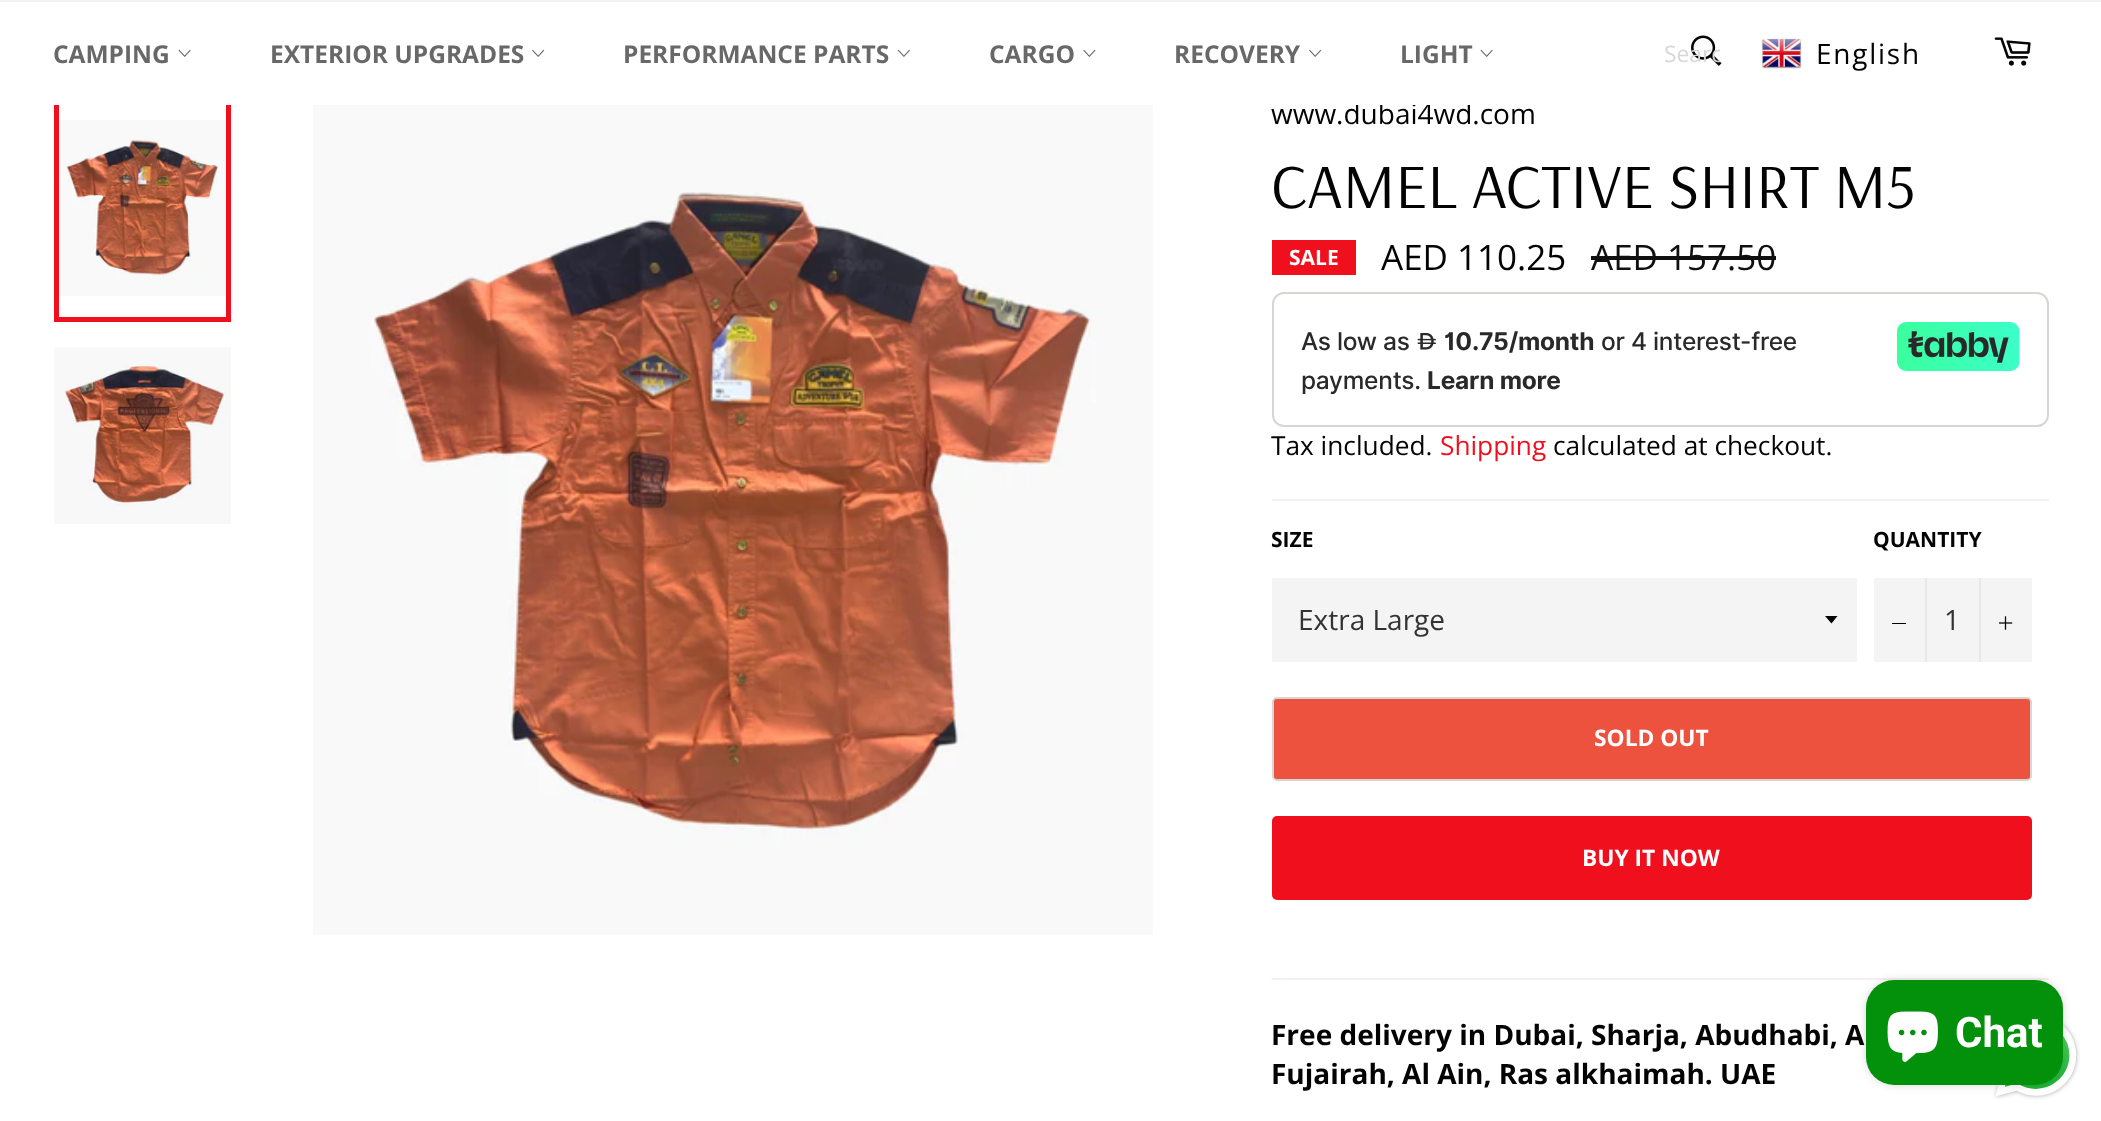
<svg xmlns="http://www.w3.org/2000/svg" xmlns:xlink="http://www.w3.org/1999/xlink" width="2101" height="1121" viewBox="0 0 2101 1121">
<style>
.cls-1{font:bold 24.5px Open Sans;fill:#686868}
.cls-2{font:22.75px Open Sans;fill:#d7d7d7}
.cls-3{font:28px Open Sans;letter-spacing:1.75px;fill:#030303}
.cls-4{font:28px Open Sans;fill:#030303}
.cls-5{font:63px Arsenal;fill:#030303}
.cls-6{font:bold 21px Open Sans;fill:#ffffff}
.cls-7{font:35px Open Sans;fill:#030303}
.cls-8{font:35px Open Sans;fill:#101010}
.cls-9{font:500 24.5px Inter;letter-spacing:-0.25px;fill:#292929}
.cls-10{font:bold 24.5px Inter;letter-spacing:-0.25px;fill:#292929}
.cls-11{font:26.25px Open Sans;fill:#030303}
.cls-12{font:26.25px Open Sans;fill:#f0101d}
.cls-13{font:bold 21px Open Sans;fill:#030303}
.cls-14{font:28px Open Sans;fill:#333333}
.cls-15{font:bold 22.75px Open Sans;fill:#ffffff}
.cls-16{font:bold 28px Open Sans;fill:#030303}
.cls-17{font:bold 42px Roboto;fill:#ffffff}
</style>
<defs>
<clipPath id="clip1"><rect x="1664" y="39" width="56" height="31"/></clipPath>
</defs>
<rect width="100%" height="100%" fill="#ffffff"/>
<rect fill="#f2f2f2" x="0" y="0" width="2101" height="2"/>
<image xlink:href="image0.png" x="178" y="49" width="13" height="8"/>
<image xlink:href="image1.png" x="532" y="49" width="13" height="8"/>
<image xlink:href="image2.png" x="897" y="49" width="13" height="8"/>
<image xlink:href="image3.png" x="1083" y="49" width="13" height="8"/>
<image xlink:href="image1.png" x="1309" y="49" width="13" height="8"/>
<image xlink:href="image0.png" x="1480" y="49" width="13" height="8"/>
<image xlink:href="image4.png" x="1691" y="35" width="31" height="31"/>
<image xlink:href="image5.png" x="1761" y="38" width="41" height="31"/>
<image xlink:href="image6.png" x="1994" y="37" width="37" height="29"/>
<image xlink:href="image7.png" x="59" y="120" width="167" height="176"/>
<rect fill="none" stroke="#f0101d" stroke-width="5" x="56.5" y="97.5" width="172" height="222"/>
<image xlink:href="image8.png" x="54" y="347" width="177" height="177"/>
<image xlink:href="image9.png" x="313" y="105" width="840" height="830"/>
<rect fill="#f0101d" x="1272" y="240" width="84" height="35"/>
<rect fill="#101010" x="1591" y="256" width="185" height="4"/>
<rect fill="none" stroke="#d6d6d3" stroke-width="2" x="1273" y="293" width="775" height="133" rx="11"/>
<image xlink:href="image10.png" x="1417" y="333" width="19" height="17"/>
<image xlink:href="image11.png" x="1897" y="322" width="123" height="49"/>
<rect fill="#f8f0f0" x="1272" y="499" width="777" height="2"/>
<rect fill="#f4f4f4" x="1272" y="578" width="585" height="84"/>
<path fill="#030303" d="M1825 616L1831.5 623.5L1837.5 616Z"/>
<rect fill="#f4f4f4" x="1874" y="578" width="158" height="84"/>
<rect fill="#e7e7e7" x="1925" y="578" width="2" height="84"/>
<rect fill="#030303" x="1892" y="623" width="14" height="1"/>
<rect fill="#e7e7e7" x="1979" y="578" width="2" height="84"/>
<image xlink:href="image12.png" x="1999" y="616" width="14" height="14"/>
<rect fill="#ec523e" stroke="#d5d5d5" stroke-width="2" x="1273" y="698" width="758" height="82" rx="4"/>
<rect fill="#f0101d" x="1272" y="816" width="760" height="84" rx="5"/>
<rect fill="#f8f0f0" x="1272" y="978" width="777" height="2"/>
<image xlink:href="image14.png" x="1992" y="1021" width="88" height="79"/>
<rect fill="#000000" fill-opacity="0.15" filter="blur(4.5px)" x="1866" y="980" width="197" height="105" rx="28"/>
<rect fill="#03910b" x="1866" y="980" width="197" height="105" rx="28"/>
<image xlink:href="image13.png" x="1887" y="1011" width="51" height="51"/>
<text class="cls-1" x="53" y="63">CAMPING</text>
<text class="cls-1" x="270" y="63">EXTERIOR UPGRADES</text>
<text class="cls-1" x="623" y="63">PERFORMANCE PARTS</text>
<text class="cls-1" x="989" y="63">CARGO</text>
<text class="cls-1" x="1174" y="63">RECOVERY</text>
<text class="cls-1" x="1400" y="63">LIGHT</text>
<g clip-path="url(#clip1)">
<text class="cls-2" x="1664" y="62">Searc</text>
</g>
<text class="cls-3" x="1816" y="64">English</text>
<text class="cls-4" x="1271" y="124">www.dubai4wd.com</text>
<rect fill="#ffffff" x="54" y="95" width="1417" height="10"/>
<text class="cls-5" x="1271" y="208">CAMEL ACTIVE SHIRT M5</text>
<text class="cls-6" x="1289" y="265">SALE</text>
<text class="cls-7" x="1381" y="270">AED 110.25</text>
<text class="cls-8" x="1591" y="270">AED 157.50</text>
<text class="cls-9" x="1301" y="350">As low as</text>
<text class="cls-10" x="1444" y="350">10.75/month</text>
<text class="cls-9" x="1601" y="350">or 4 interest-free</text>
<text class="cls-9" x="1301" y="389">payments.</text>
<text class="cls-10" x="1427" y="389">Learn more</text>
<text class="cls-11" x="1271" y="455">Tax included.</text>
<text class="cls-12" x="1440" y="455">Shipping</text>
<text class="cls-11" x="1553" y="455">calculated at checkout.</text>
<text class="cls-13" x="1271" y="547">SIZE</text>
<text class="cls-14" x="1298" y="630">Extra Large</text>
<text class="cls-13" x="1873" y="547">QUANTITY</text>
<text class="cls-14" x="1944" y="630">1</text>
<text class="cls-15" x="1594" y="746">SOLD OUT</text>
<text class="cls-15" x="1582" y="866">BUY IT NOW</text>
<text class="cls-16"><tspan x="1271" y="1045">Free delivery in Dubai, Sharja, Abudhabi, A</tspan><tspan x="1271" y="1084">Fujairah, Al Ain, Ras alkhaimah. UAE</tspan></text>
<text class="cls-17" x="1955" y="1047">Chat</text>
</svg>
